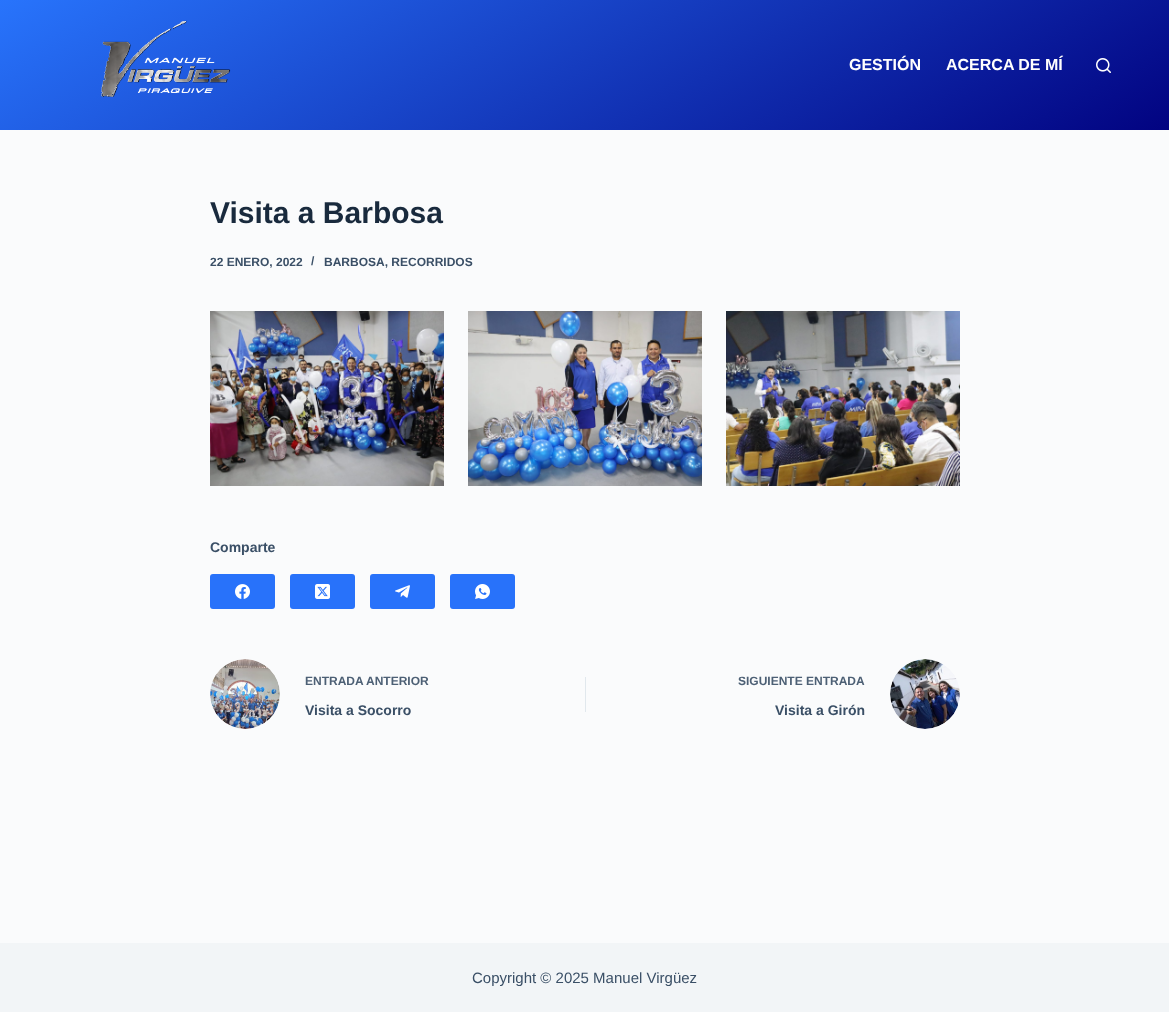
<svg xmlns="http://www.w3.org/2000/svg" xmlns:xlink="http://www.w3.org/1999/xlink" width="1169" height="1012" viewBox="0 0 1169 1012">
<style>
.cls-1{font:bold 16px Liberation Sans;fill:#fffefe}
.cls-2{font:bold 30px Liberation Sans;fill:#192a3d}
.cls-3{font:bold 12px Liberation Sans;fill:#3a4f66}
.cls-4{font:bold 14px Liberation Sans;fill:#3a4f66}
.cls-5{font:bold 12px Liberation Sans;fill:#4d6075}
.cls-6{font:15px Liberation Sans;fill:#3a4f66}
</style>
<defs>
<linearGradient id="g1" gradientUnits="userSpaceOnUse" x1="759" y1="367" x2="410" y2="-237"><stop offset="0" stop-color="#020381"/><stop offset="1" stop-color="#2874fc"/></linearGradient>
</defs>
<rect width="100%" height="100%" fill="#fafbfc"/>
<rect fill="url(#g1)" x="0" y="0" width="1169" height="130"/>
<image xlink:href="image0.png" x="100" y="20" width="131" height="77"/>
<image xlink:href="image1.png" x="1096" y="58" width="15" height="15"/>
<image xlink:href="image2.png" x="210" y="311" width="234" height="175"/>
<image xlink:href="image3.png" x="468" y="311" width="234" height="175"/>
<image xlink:href="image4.png" x="726" y="311" width="234" height="175"/>
<rect fill="#2872fa" x="210" y="574" width="65" height="35" rx="3"/>
<image xlink:href="image5.png" x="235" y="584" width="15" height="15"/>
<rect fill="#2872fa" x="290" y="574" width="65" height="35" rx="3"/>
<image xlink:href="image6.png" x="315" y="584" width="15" height="15"/>
<rect fill="#2872fa" x="370" y="574" width="65" height="35" rx="3"/>
<image xlink:href="image7.png" x="395" y="585" width="15" height="13"/>
<rect fill="#2872fa" x="450" y="574" width="65" height="35" rx="3"/>
<image xlink:href="image8.png" x="475" y="584" width="15" height="15"/>
<image xlink:href="image9.png" x="210" y="659" width="70" height="70"/>
<rect fill="#e1e8ed" x="585" y="677" width="1" height="35"/>
<image xlink:href="image10.png" x="890" y="659" width="70" height="70"/>
<rect fill="#f2f5f7" x="0" y="943" width="1169" height="69"/>
<text class="cls-1" x="849" y="70">GESTIÓN</text>
<text class="cls-1" x="946" y="70">ACERCA DE MÍ</text>
<text class="cls-2" x="210" y="223">Visita a Barbosa</text>
<text class="cls-3" x="210" y="266">22 ENERO, 2022</text>
<text class="cls-3" x="311" y="265">/</text>
<text class="cls-3" x="324" y="266">BARBOSA, RECORRIDOS</text>
<text class="cls-4" x="210" y="552">Comparte</text>
<text class="cls-5" x="305" y="685">ENTRADA</text>
<text class="cls-5" x="366" y="685">ANTERIOR</text>
<text class="cls-4" x="305" y="715">Visita a Socorro</text>
<text class="cls-5" x="738" y="685">SIGUIENTE ENTRADA</text>
<text class="cls-4" x="775" y="715">Visita a Girón</text>
<text class="cls-6" x="472" y="983">Copyright © 2025 Manuel Virgüez</text>
</svg>
